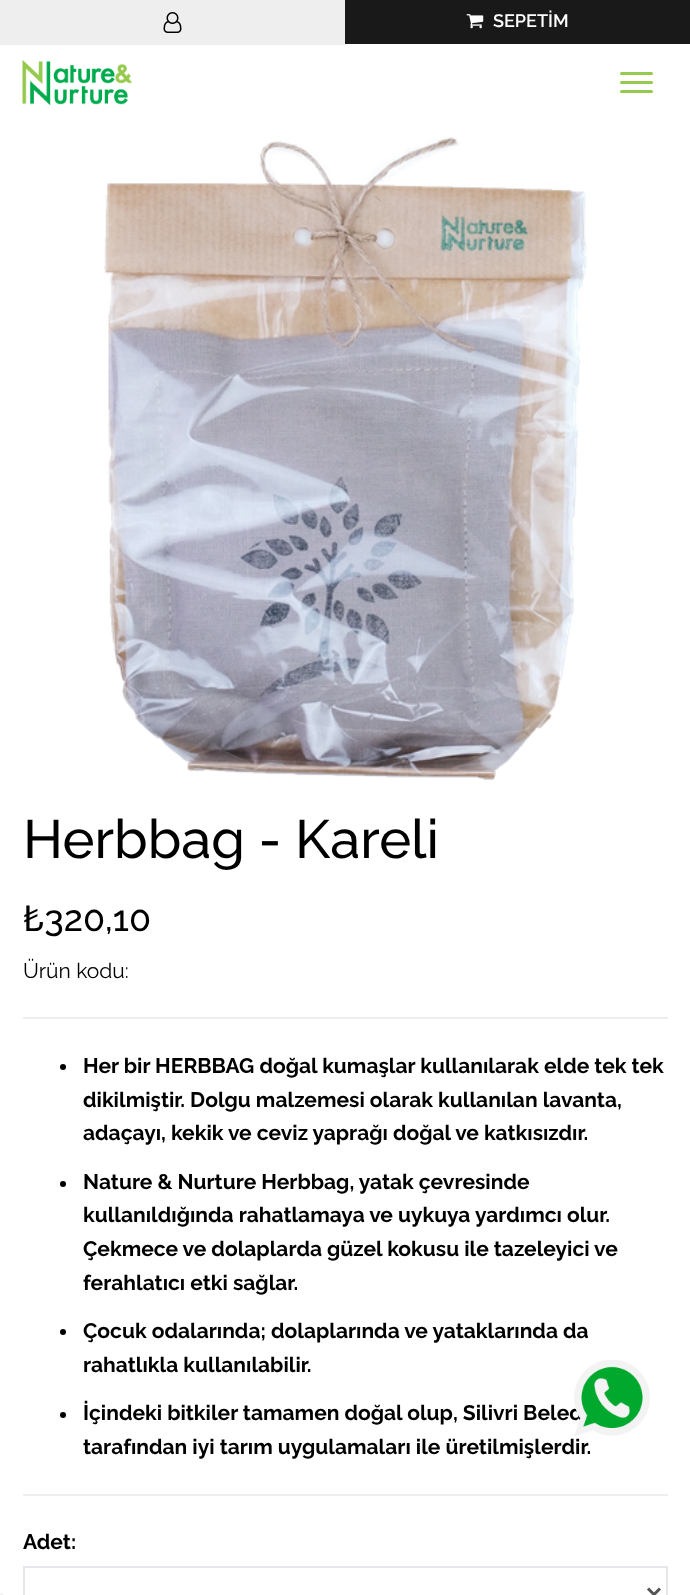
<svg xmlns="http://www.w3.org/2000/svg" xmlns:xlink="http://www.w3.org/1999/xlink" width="690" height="1595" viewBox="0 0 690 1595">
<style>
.cls-1{font:600 18px Raleway;fill:#ffffff}
.cls-2{font:500 54px Raleway;fill:#000000}
.cls-3{font:500 36px Raleway;fill:#000000}
.cls-4{font:21px Raleway;fill:#000000}
.cls-5{font:bold 21px Raleway;fill:#000000}
</style>
<rect width="100%" height="100%" fill="#ffffff"/>
<rect fill="#eeeeee" x="0" y="0" width="345" height="45"/>
<image xlink:href="image0.png" x="163" y="12" width="19" height="21"/>
<rect fill="#191919" x="345" y="0" width="345" height="44"/>
<image xlink:href="image1.png" x="466" y="14" width="18" height="15"/>
<image xlink:href="image2.png" x="22" y="60" width="110" height="45"/>
<rect fill="#96ca4f" x="620" y="72" width="33" height="3" rx="1.5"/>
<rect fill="#96ca4f" x="620" y="81" width="33" height="3" rx="1.5"/>
<rect fill="#96ca4f" x="620" y="90" width="33" height="3" rx="1.5"/>
<image xlink:href="image3.png" x="104" y="137" width="483" height="643"/>
<rect fill="#eeeeee" x="23" y="1017" width="645" height="2"/>
<circle fill="#000000" cx="63" cy="1067" r="3"/>
<circle fill="#000000" cx="63" cy="1184" r="3"/>
<circle fill="#000000" cx="63" cy="1332" r="3"/>
<circle fill="#000000" cx="63" cy="1415" r="3"/>
<rect fill="#eeeeee" x="23" y="1494" width="645" height="2"/>
<rect fill="none" stroke="#e7e7eb" stroke-width="2" x="24" y="1567" width="643" height="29"/>
<path fill="none" stroke="#555555" stroke-width="3" d="M648 1588.5L654 1594.5L660 1588.5"/>
<rect fill="#f5f5f5" x="0" y="1593" width="3" height="2"/>
<text class="cls-1" x="493" y="27">SEPETİM</text>
<text class="cls-2" x="23" y="858">Herbbag - Kareli</text>
<text class="cls-3" x="23" y="931">₺320,10</text>
<text class="cls-4" x="23" y="978">Ürün kodu:</text>
<text class="cls-5"><tspan x="83" y="1073">Her bir HERBBAG doğal kumaşlar kullanılarak elde tek tek</tspan><tspan x="83" y="1107">dikilmiştir. Dolgu malzemesi olarak kullanılan lavanta,</tspan><tspan x="83" y="1140">adaçayı, kekik ve ceviz yaprağı doğal ve katkısızdır.</tspan></text>
<text class="cls-5"><tspan x="83" y="1189">Nature &amp; Nurture Herbbag, yatak çevresinde</tspan><tspan x="83" y="1222">kullanıldığında rahatlamaya ve uykuya yardımcı olur.</tspan><tspan x="83" y="1256">Çekmece ve dolaplarda güzel kokusu ile tazeleyici ve</tspan><tspan x="83" y="1290">ferahlatıcı etki sağlar.</tspan></text>
<text class="cls-5"><tspan x="83" y="1338">Çocuk odalarında; dolaplarında ve yataklarında da</tspan><tspan x="83" y="1372">rahatlıkla kullanılabilir.</tspan></text>
<text class="cls-5"><tspan x="83" y="1420">İçindeki bitkiler tamamen doğal olup, Silivri Beled</tspan><tspan x="83" y="1454">tarafından iyi tarım uygulamaları ile üretilmişlerdir.</tspan></text>
<text class="cls-5" x="23" y="1549">Adet:</text>
<image xlink:href="image4.png" x="574" y="1360" width="76" height="76"/>
</svg>
